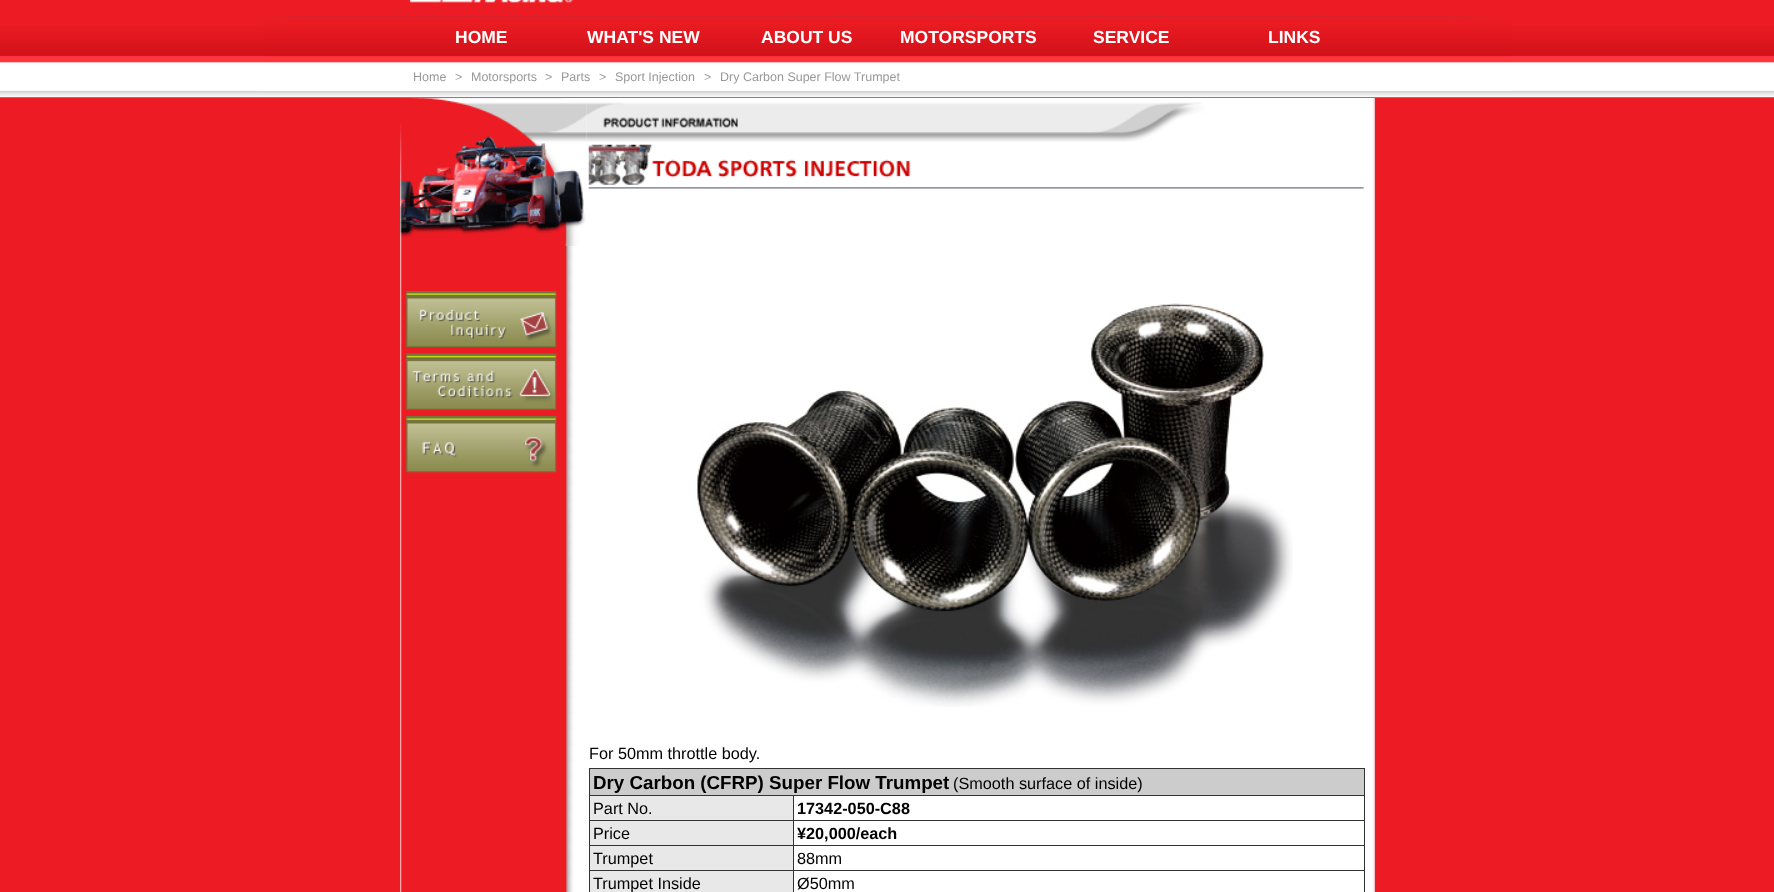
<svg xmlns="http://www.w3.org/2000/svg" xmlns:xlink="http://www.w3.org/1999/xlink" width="1774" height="892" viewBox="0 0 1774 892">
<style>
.cls-1{font:bold 17.5px Liberation Sans;fill:#ffffff}
.cls-2{font:12.5px Liberation Sans;fill:#999999}
.cls-3{font:16.25px Liberation Sans;fill:#000000}
.cls-4{font:bold 18.75px Liberation Sans;fill:#000000}
.cls-5{font:bold 16.25px Liberation Sans;fill:#000000}
</style>
<rect width="100%" height="100%" fill="#ed1c24"/>
<image xlink:href="image0.png" x="0" y="26" width="1774" height="72"/>
<image xlink:href="image1.png" x="263" y="0" width="1249" height="91"/>
<image xlink:href="image5.png" x="400" y="98" width="975" height="794"/>
<image xlink:href="image2.png" x="406" y="291" width="151" height="57"/>
<image xlink:href="image3.png" x="406" y="353" width="151" height="57"/>
<image xlink:href="image4.png" x="406" y="416" width="151" height="57"/>
<image xlink:href="image6.png" x="400" y="98" width="187" height="148"/>
<image xlink:href="image7.png" x="586" y="98" width="777" height="44"/>
<image xlink:href="image8.png" x="588" y="144" width="776" height="45"/>
<image xlink:href="image9.png" x="697" y="303" width="596" height="404"/>
<rect fill="#333333" x="589" y="768" width="776" height="124"/>
<rect fill="#cccccc" x="590" y="769" width="774" height="26"/>
<rect fill="#e8e8e8" x="590" y="796" width="203" height="24"/>
<rect fill="#ffffff" x="794" y="796" width="570" height="24"/>
<rect fill="#e8e8e8" x="590" y="821" width="203" height="24"/>
<rect fill="#ffffff" x="794" y="821" width="570" height="24"/>
<rect fill="#e8e8e8" x="590" y="846" width="203" height="24"/>
<rect fill="#ffffff" x="794" y="846" width="570" height="24"/>
<rect fill="#e8e8e8" x="590" y="871" width="203" height="21"/>
<rect fill="#ffffff" x="794" y="871" width="570" height="21"/>
<text class="cls-1" x="455" y="43">HOME</text>
<text class="cls-1" x="587" y="43">WHAT'S NEW</text>
<text class="cls-1" x="761" y="43">ABOUT US</text>
<text class="cls-1" x="900" y="43">MOTORSPORTS</text>
<text class="cls-1" x="1093" y="43">SERVICE</text>
<text class="cls-1" x="1268" y="43">LINKS</text>
<text class="cls-2" x="413" y="81">Home</text>
<text class="cls-2" x="455" y="81">&gt;</text>
<text class="cls-2" x="471" y="81">Motorsports</text>
<text class="cls-2" x="545" y="81">&gt;</text>
<text class="cls-2" x="561" y="81">Parts</text>
<text class="cls-2" x="599" y="81">&gt;</text>
<text class="cls-2" x="615" y="81">Sport Injection</text>
<text class="cls-2" x="704" y="81">&gt;</text>
<text class="cls-2" x="720" y="81">Dry Carbon Super Flow Trumpet</text>
<text class="cls-3" x="589" y="759">For 50mm throttle body.</text>
<text class="cls-4" x="593" y="789">Dry Carbon (CFRP) Super Flow Trumpet</text>
<text class="cls-3" x="953" y="789">(Smooth surface of inside)</text>
<text class="cls-3" x="593" y="814">Part No.</text>
<text class="cls-5" x="797" y="814">17342-050-C88</text>
<text class="cls-3" x="593" y="839">Price</text>
<text class="cls-5" x="797" y="839">¥20,000/each</text>
<text class="cls-3" x="593" y="864">Trumpet</text>
<text class="cls-3" x="797" y="864">88mm</text>
<text class="cls-3" x="593" y="889">Trumpet Inside</text>
<text class="cls-3" x="797" y="889">Ø50mm</text>
</svg>
